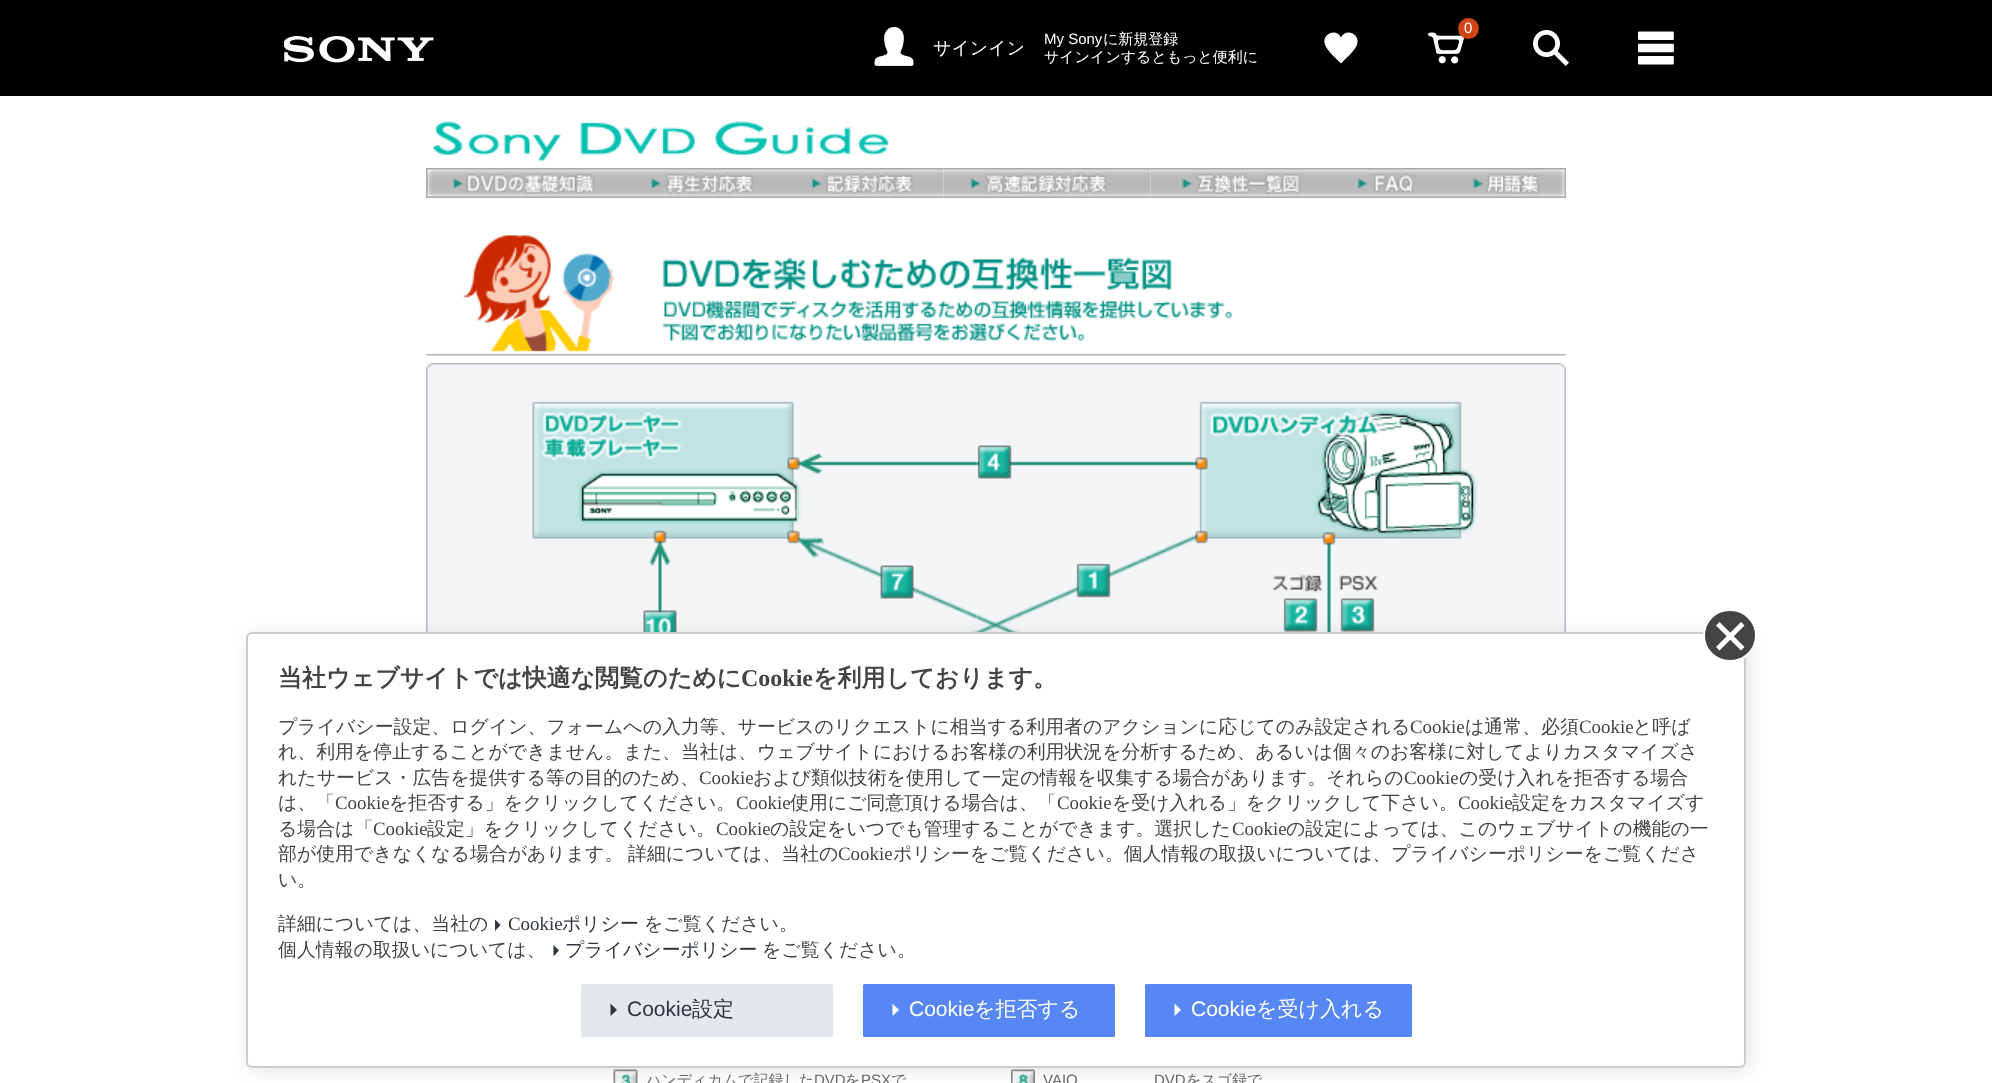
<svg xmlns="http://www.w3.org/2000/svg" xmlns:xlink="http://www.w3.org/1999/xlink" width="1992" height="1083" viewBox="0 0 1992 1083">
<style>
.cls-1{font:15px Liberation Sans;fill:#ffffff}
.cls-2{font:500 18px WenQuanYi Zen Hei;fill:#ffffff}
.cls-3{font:500 15px WenQuanYi Zen Hei;fill:#ffffff}
.cls-4{font:bold 24px WenQuanYi Zen Hei;fill:#444444}
.cls-5{font:bold 24px Liberation Serif;fill:#444444}
.cls-6{font:500 18.9px WenQuanYi Zen Hei;fill:#444444}
.cls-7{font:18.9px Liberation Serif;fill:#444444}
.cls-8{font:18.9px Liberation Serif;fill:#2f353d}
.cls-9{font:500 18.9px WenQuanYi Zen Hei;fill:#2f353d}
.cls-10{font:21px Liberation Sans;fill:#2f353d}
.cls-11{font:500 21px WenQuanYi Zen Hei;fill:#2f353d}
.cls-12{font:21px Liberation Sans;fill:#ffffff}
.cls-13{font:500 21px WenQuanYi Zen Hei;fill:#ffffff}
.cls-14{font:500 15px WenQuanYi Zen Hei;fill:#666666}
.cls-15{font:15px Liberation Sans;fill:#666666}
</style>
<rect width="100%" height="100%" fill="#ffffff"/>
<rect fill="#000000" x="0" y="0" width="1992" height="96"/>
<image xlink:href="image0.png" x="284" y="36" width="150" height="27"/>
<image xlink:href="image1.png" x="1428" y="32" width="36" height="32"/>
<circle fill="#d24615" cx="1468.5" cy="28.5" r="10.5"/>
<image xlink:href="image2.png" x="874" y="27" width="40" height="39"/>
<path fill="#ffffff" d="M1341 63.5C1336 58.5 1328.5 52 1325.5 46C1320 34 1336.5 27.5 1341 37.5C1345.5 27.5 1362 34 1356.5 46C1353 52.5 1346 58 1341 63.5Z"/>
<image xlink:href="image3.png" x="1533" y="30" width="36" height="36"/>
<image xlink:href="image4.png" x="1638" y="31" width="36" height="34"/>
<image xlink:href="image14.png" x="426" y="363" width="551" height="269"/>
<image xlink:href="image15.png" x="976" y="363" width="590" height="269"/>
<image xlink:href="image16.png" x="613" y="1069" width="25" height="14"/>
<image xlink:href="image17.png" x="1011" y="1069" width="24" height="14"/>
<rect fill="#000000" fill-opacity="0.1" filter="blur(9px)" x="249" y="635" width="1500" height="436" rx="6"/>
<rect fill="#ffffff" stroke="#cccccc" stroke-width="2" x="247" y="633" width="1498" height="434" rx="5"/>
<rect fill="#444444" stroke="#ffffff" stroke-width="2" x="1704" y="610" width="52" height="51" rx="25.5"/>
<path fill="#ffffff" d="M1716 647L1741 622L1744.5 625.5L1719.5 650.5Z"/>
<path fill="#ffffff" d="M1719.5 622L1744.5 647L1741 650.5L1716 625.5Z"/>
<path fill="#2f353d" d="M495 919.5L500.5 925L495 931Z"/>
<path fill="#2f353d" d="M553.5 945L559 950.5L553.5 956.5Z"/>
<rect fill="#e4e7ec" x="581" y="984" width="252" height="53" rx="1.5"/>
<path fill="#2f353d" d="M610.5 1003.5L617 1010L610.5 1016Z"/>
<rect fill="#5787f4" x="863" y="984" width="252" height="53" rx="1.5"/>
<path fill="#ffffff" d="M892.5 1003.5L899 1010L892.5 1016Z"/>
<rect fill="#5787f4" x="1145" y="984" width="267" height="53" rx="1.5"/>
<path fill="#ffffff" d="M1174.5 1003.5L1181 1010L1174.5 1016Z"/>
<image xlink:href="image5.png" x="431" y="121" width="458" height="40"/>
<image xlink:href="image6.png" x="426" y="168" width="201" height="30"/>
<image xlink:href="image7.png" x="627" y="168" width="156" height="30"/>
<image xlink:href="image8.png" x="783" y="168" width="161" height="30"/>
<image xlink:href="image9.png" x="943" y="168" width="208" height="30"/>
<image xlink:href="image10.png" x="1150" y="168" width="182" height="30"/>
<image xlink:href="image11.png" x="1332" y="168" width="114" height="30"/>
<image xlink:href="image12.png" x="1446" y="168" width="120" height="30"/>
<image xlink:href="image13.png" x="426" y="235" width="1140" height="121"/>
<text class="cls-1" x="1464" y="33">0</text>
<text class="cls-2" x="933" y="54">サインイン</text>
<text class="cls-1" x="1044" y="44">My Sony</text>
<text class="cls-3" x="1103" y="44">に新規登録</text>
<text class="cls-3" x="1044" y="62">サインインするともっと便利に</text>
<text class="cls-4" x="278" y="686">当社ウェブサイトでは快適な閲覧のために</text>
<text class="cls-5" x="741" y="686">Cookie</text>
<text class="cls-4" x="813" y="686">を利用しております。</text>
<text class="cls-6" x="278" y="733">プライバシー設定、ログイン、フォームへの入力等、サービスのリクエストに相当する利用者のアクションに応じてのみ設定される</text>
<text class="cls-7" x="1410" y="733">Cookie</text>
<text class="cls-6" x="1465" y="733">は通常、必須</text>
<text class="cls-7" x="1579" y="733">Cookie</text>
<text class="cls-6" x="1633" y="733">と呼ば</text>
<text class="cls-6"><tspan x="278" y="758">れ、利用を停止することができません。また、当社は、ウェブサイトにおけるお客様の利用状況を分析するため、あるいは個々のお客様に対してよりカスタマイズさ</tspan><tspan x="278" y="784">れたサービス・広告を提供する等の目的のため、</tspan></text>
<text class="cls-7" x="699" y="784">Cookie</text>
<text class="cls-6" x="753" y="784">および類似技術を使用して一定の情報を収集する場合があります。それらの</text>
<text class="cls-7" x="1404" y="784">Cookie</text>
<text class="cls-6" x="1459" y="784">の受け入れを拒否する場合</text>
<text class="cls-6" x="278" y="809">は、「</text>
<text class="cls-7" x="335" y="809">Cookie</text>
<text class="cls-6" x="389" y="809">を拒否する」をクリックしてください。</text>
<text class="cls-7" x="736" y="809">Cookie</text>
<text class="cls-6" x="790" y="809">使用にご同意頂ける場合は、「</text>
<text class="cls-7" x="1057" y="809">Cookie</text>
<text class="cls-6" x="1112" y="809">を受け入れる」をクリックして下さい。</text>
<text class="cls-7" x="1458" y="809">Cookie</text>
<text class="cls-6" x="1512" y="809">設定をカスタマイズす</text>
<text class="cls-6" x="278" y="835">る場合は「</text>
<text class="cls-7" x="373" y="835">Cookie</text>
<text class="cls-6" x="427" y="835">設定」をクリックしてください。</text>
<text class="cls-7" x="716" y="835">Cookie</text>
<text class="cls-6" x="770" y="835">の設定をいつでも管理することができます。選択した</text>
<text class="cls-7" x="1232" y="835">Cookie</text>
<text class="cls-6" x="1286" y="835">の設定によっては、このウェブサイトの機能の一</text>
<text class="cls-6" x="278" y="860">部が使用できなくなる場合があります。</text>
<text class="cls-6" x="628" y="860">詳細については、当社の</text>
<text class="cls-7" x="838" y="860">Cookie</text>
<text class="cls-6" x="893" y="860">ポリシーをご覧ください。個人情報の取扱いについては、プライバシーポリシーをご覧くださ</text>
<text class="cls-6" x="278" y="886">い。</text>
<text class="cls-6" x="278" y="930">詳細については、当社の</text>
<text class="cls-8" x="508" y="930">Cookie</text>
<text class="cls-9" x="562" y="930">ポリシー</text>
<text class="cls-6" x="644" y="930">をご覧ください。</text>
<text class="cls-6" x="278" y="956">個人情報の取扱いについては、</text>
<text class="cls-9" x="565" y="956">プライバシーポリシー</text>
<text class="cls-6" x="762" y="956">をご覧ください。</text>
<text class="cls-10" x="627" y="1016">Cookie</text>
<text class="cls-11" x="692" y="1016">設定</text>
<text class="cls-12" x="909" y="1016">Cookie</text>
<text class="cls-13" x="974" y="1016">を拒否する</text>
<text class="cls-12" x="1191" y="1016">Cookie</text>
<text class="cls-13" x="1256" y="1016">を受け入れる</text>
<text class="cls-14" x="646" y="1085">ハンディカムで記録した</text>
<text class="cls-15" x="814" y="1085">DVD</text>
<text class="cls-14" x="845" y="1085">を</text>
<text class="cls-15" x="861" y="1085">PSX</text>
<text class="cls-14" x="891" y="1085">で</text>
<text class="cls-15" x="1043" y="1085">VAIO</text>
<text class="cls-15" x="1154" y="1085">DVD</text>
<text class="cls-14" x="1186" y="1085">をスゴ録で</text>
</svg>
